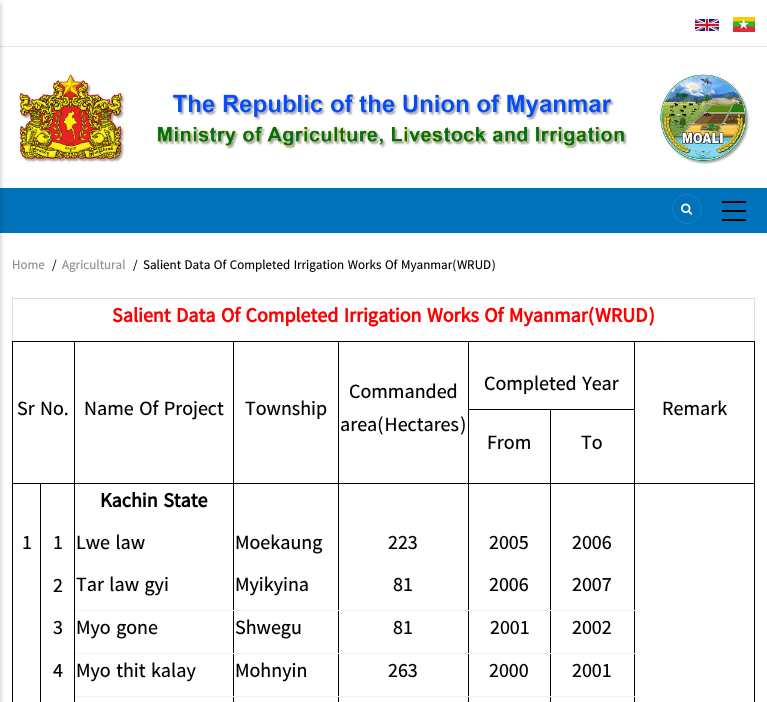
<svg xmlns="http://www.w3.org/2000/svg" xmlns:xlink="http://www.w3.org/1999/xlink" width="767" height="702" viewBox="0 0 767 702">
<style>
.cls-1{font:13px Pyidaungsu;fill:#909090}
.cls-2{font:13px Pyidaungsu;fill:#000000}
.cls-3{font:bold 20px Pyidaungsu;fill:#ff0000}
.cls-4{font:20px Pyidaungsu;fill:#000000}
.cls-5{font:bold 20px Pyidaungsu;fill:#000000}
</style>
<rect width="100%" height="100%" fill="#ffffff"/>
<rect fill="#0072bc" x="0" y="188" width="767" height="45"/>
<rect fill="#e6e6e6" x="0" y="46" width="767" height="1"/>
<rect fill="#000000" fill-opacity="0.2" filter="blur(2px)" x="-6" y="3" width="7" height="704"/>
<circle fill="none" stroke="#1a80c3" cx="687" cy="209" r="14.5"/>
<image xlink:href="image0.png" x="681" y="203" width="12" height="12"/>
<rect fill="#000000" x="722" y="201" width="24" height="2"/>
<rect fill="#000000" x="722" y="210" width="24" height="2"/>
<rect fill="#000000" x="722" y="219" width="24" height="2"/>
<image xlink:href="image1.png" x="695" y="19" width="24" height="12"/>
<image xlink:href="image2.png" x="733" y="17" width="22" height="15"/>
<image xlink:href="image3.png" x="19" y="74" width="731" height="90"/>
<rect fill="#dddddd" x="12" y="298" width="743" height="1"/>
<rect fill="#dddddd" x="754" y="298" width="1" height="43"/>
<rect fill="#dddddd" x="12" y="298" width="1" height="43"/>
<rect fill="#000000" x="754" y="341" width="1" height="361"/>
<rect fill="#000000" x="12" y="483" width="1" height="219"/>
<rect fill="#000000" x="40" y="483" width="1" height="219"/>
<rect fill="#000000" x="468" y="409" width="167" height="1"/>
<rect fill="#000000" x="634" y="483" width="1" height="219"/>
<rect fill="#000000" x="550" y="696" width="1" height="6"/>
<rect fill="#f2f2f2" x="550" y="696" width="85" height="1"/>
<rect fill="#000000" x="550" y="653" width="1" height="44"/>
<rect fill="#f2f2f2" x="550" y="653" width="85" height="1"/>
<rect fill="#000000" x="550" y="610" width="1" height="44"/>
<rect fill="#f2f2f2" x="550" y="610" width="85" height="1"/>
<rect fill="#000000" x="550" y="483" width="1" height="128"/>
<rect fill="#000000" x="550" y="483" width="205" height="1"/>
<rect fill="#000000" x="550" y="409" width="1" height="75"/>
<rect fill="#000000" x="468" y="696" width="1" height="6"/>
<rect fill="#f2f2f2" x="468" y="696" width="83" height="1"/>
<rect fill="#000000" x="468" y="653" width="1" height="44"/>
<rect fill="#f2f2f2" x="468" y="653" width="83" height="1"/>
<rect fill="#000000" x="468" y="610" width="1" height="44"/>
<rect fill="#f2f2f2" x="468" y="610" width="83" height="1"/>
<rect fill="#000000" x="468" y="483" width="1" height="128"/>
<rect fill="#000000" x="468" y="483" width="83" height="1"/>
<rect fill="#000000" x="468" y="341" width="1" height="143"/>
<rect fill="#000000" x="338" y="696" width="1" height="6"/>
<rect fill="#f2f2f2" x="338" y="696" width="131" height="1"/>
<rect fill="#000000" x="338" y="653" width="1" height="44"/>
<rect fill="#f2f2f2" x="338" y="653" width="131" height="1"/>
<rect fill="#000000" x="338" y="610" width="1" height="44"/>
<rect fill="#f2f2f2" x="338" y="610" width="131" height="1"/>
<rect fill="#000000" x="338" y="483" width="1" height="128"/>
<rect fill="#000000" x="338" y="483" width="131" height="1"/>
<rect fill="#000000" x="338" y="341" width="1" height="143"/>
<rect fill="#000000" x="233" y="696" width="1" height="6"/>
<rect fill="#f2f2f2" x="233" y="696" width="106" height="1"/>
<rect fill="#000000" x="233" y="653" width="1" height="44"/>
<rect fill="#f2f2f2" x="233" y="653" width="106" height="1"/>
<rect fill="#000000" x="233" y="610" width="1" height="44"/>
<rect fill="#f2f2f2" x="233" y="610" width="106" height="1"/>
<rect fill="#000000" x="233" y="483" width="1" height="128"/>
<rect fill="#000000" x="233" y="483" width="106" height="1"/>
<rect fill="#000000" x="233" y="341" width="1" height="143"/>
<rect fill="#000000" x="74" y="696" width="1" height="6"/>
<rect fill="#f2f2f2" x="74" y="696" width="160" height="1"/>
<rect fill="#000000" x="74" y="653" width="1" height="44"/>
<rect fill="#f2f2f2" x="74" y="653" width="160" height="1"/>
<rect fill="#000000" x="74" y="610" width="1" height="44"/>
<rect fill="#f2f2f2" x="74" y="610" width="160" height="1"/>
<rect fill="#000000" x="74" y="483" width="1" height="128"/>
<rect fill="#000000" x="74" y="483" width="160" height="1"/>
<rect fill="#000000" x="74" y="341" width="1" height="143"/>
<rect fill="#000000" x="12" y="483" width="63" height="1"/>
<rect fill="#000000" x="12" y="341" width="1" height="143"/>
<rect fill="#000000" x="634" y="341" width="1" height="143"/>
<rect fill="#000000" x="12" y="341" width="743" height="1"/>
<text class="cls-1" x="12" y="269">Home</text>
<text class="cls-2" x="52" y="269">/</text>
<text class="cls-1" x="62" y="269">Agricultural</text>
<text class="cls-2" x="133" y="269">/</text>
<text class="cls-2" x="143" y="269">Salient Data Of Completed Irrigation Works Of Myanmar(WRUD)</text>
<text class="cls-3" x="112" y="322">Salient Data Of Completed Irrigation Works Of Myanmar(WRUD)</text>
<text class="cls-4" x="17" y="415">Sr No.</text>
<text class="cls-4" x="84" y="415">Name Of Project</text>
<text class="cls-4" x="245" y="415">Township</text>
<text class="cls-4" x="349" y="398">Commanded</text>
<text class="cls-4" x="340" y="431">area(Hectares)</text>
<text class="cls-4" x="484" y="390">Completed Year</text>
<text class="cls-4" x="662" y="415">Remark</text>
<text class="cls-4" x="487" y="449">From</text>
<text class="cls-4" x="581" y="449">To</text>
<text class="cls-5" x="100" y="507">Kachin State</text>
<text class="cls-4" x="22" y="549">1</text>
<text class="cls-4" x="53" y="549">1</text>
<text class="cls-4" x="76" y="549">Lwe law</text>
<text class="cls-4" x="235" y="549">Moekaung</text>
<text class="cls-4" x="388" y="549">223</text>
<text class="cls-4" x="489" y="549">2005</text>
<text class="cls-4" x="572" y="549">2006</text>
<text class="cls-4" x="53" y="592">2</text>
<text class="cls-4" x="76" y="591">Tar law gyi</text>
<text class="cls-4" x="235" y="591">Myikyina</text>
<text class="cls-4" x="393" y="591">81</text>
<text class="cls-4" x="489" y="591">2006</text>
<text class="cls-4" x="572" y="591">2007</text>
<text class="cls-4" x="53" y="634">3</text>
<text class="cls-4" x="76" y="634">Myo gone</text>
<text class="cls-4" x="235" y="634">Shwegu</text>
<text class="cls-4" x="393" y="634">81</text>
<text class="cls-4" x="490" y="634">2001</text>
<text class="cls-4" x="572" y="634">2002</text>
<text class="cls-4" x="53" y="677">4</text>
<text class="cls-4" x="76" y="677">Myo thit kalay</text>
<text class="cls-4" x="235" y="677">Mohnyin</text>
<text class="cls-4" x="388" y="677">263</text>
<text class="cls-4" x="489" y="677">2000</text>
<text class="cls-4" x="572" y="677">2001</text>
</svg>
